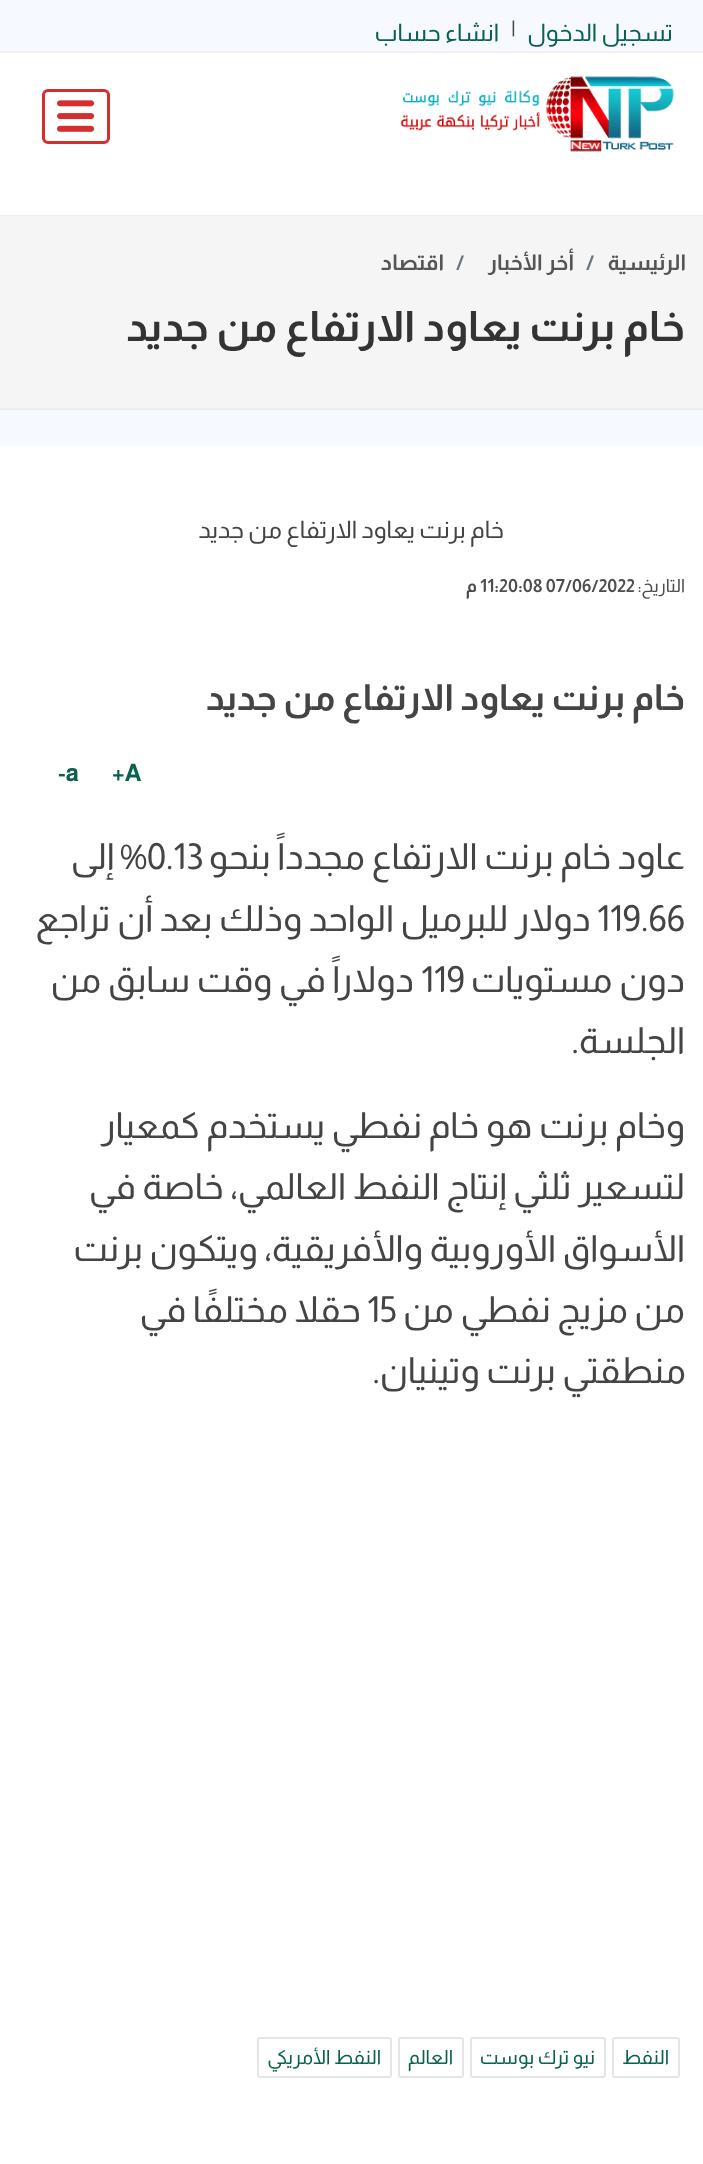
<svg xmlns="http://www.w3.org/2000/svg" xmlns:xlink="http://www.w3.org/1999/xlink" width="703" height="2164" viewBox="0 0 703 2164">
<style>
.cls-1{font:24px Almarai;direction:rtl;fill:#0b604e}
.cls-2{font:24px Almarai;fill:#444444}
.cls-3{font:bold 21.5px Almarai;direction:rtl;fill:#555555}
.cls-4{font:bold 21.5px Almarai;fill:#6c757d}
.cls-5{font:bold 42px Almarai;direction:rtl;fill:#333333}
.cls-6{font:24px Almarai;direction:rtl;fill:#444444}
.cls-7{font:18px Almarai;direction:rtl;fill:#4d4d4d}
.cls-8{font:bold 18px Almarai;fill:#4d4d4d}
.cls-9{font:bold 18px Almarai;direction:rtl;fill:#4d4d4d}
.cls-10{font:bold 36px Almarai;direction:rtl;fill:#444444}
.cls-11{font:bold 24px Almarai;fill:#0b604e}
.cls-12{font:36px Almarai;direction:rtl;fill:#444444}
.cls-13{font:36px Almarai;fill:#444444}
.cls-14{font:19.5px Almarai;direction:rtl;fill:#0b604e}
</style>
<rect width="100%" height="100%" fill="#f6f9ff"/>
<rect fill="#f0f0f0" x="0" y="51" width="703" height="2"/>
<rect fill="#ffffff" x="0" y="53" width="703" height="162"/>
<rect fill="#eeeeee" x="0" y="215" width="703" height="1"/>
<image xlink:href="image0.png" x="400" y="76" width="274" height="76"/>
<rect fill="none" stroke="#d32f2f" stroke-width="3" x="43.5" y="90.5" width="65" height="52" rx="4.5"/>
<image xlink:href="image1.png" x="57" y="100" width="38" height="32"/>
<rect fill="#f5f5f5" x="0" y="216" width="703" height="192"/>
<rect fill="#eeeeee" x="0" y="408" width="703" height="2"/>
<rect fill="#ffffff" x="0" y="446" width="703" height="1718"/>
<rect fill="none" stroke="#e5e5e5" stroke-width="2" x="613" y="2038" width="66" height="39" rx="2"/>
<rect fill="none" stroke="#e5e5e5" stroke-width="2" x="471" y="2038" width="134" height="39" rx="2"/>
<rect fill="none" stroke="#e5e5e5" stroke-width="2" x="399" y="2038" width="64" height="39" rx="2"/>
<rect fill="none" stroke="#e5e5e5" stroke-width="2" x="258" y="2038" width="133" height="39" rx="2"/>
<text class="cls-1" x="673" y="41">تسجيل الدخول</text>
<text class="cls-2" x="511" y="37">|</text>
<text class="cls-1" x="499" y="41">انشاء حساب</text>
<text class="cls-3" x="686" y="270">الرئيسية</text>
<text class="cls-4" x="586" y="270">/</text>
<text class="cls-3" x="574" y="270">أخر الأخبار</text>
<text class="cls-4" x="456" y="270">/</text>
<text class="cls-3" x="444" y="270">اقتصاد</text>
<text class="cls-5" x="685" y="341">خام برنت يعاود الارتفاع من جديد</text>
<text class="cls-6" x="504" y="538">خام برنت يعاود الارتفاع من جديد</text>
<text class="cls-7" x="685" y="592">التاريخ:</text>
<text class="cls-8" x="480" y="592">11:20:08 07/06/2022</text>
<text class="cls-9" x="477" y="592">م</text>
<text class="cls-10" x="685" y="710">خام برنت يعاود الارتفاع من جديد</text>
<text class="cls-11" x="112" y="781">+A</text>
<text class="cls-11" x="58" y="781">-a</text>
<text class="cls-12" x="685" y="869">عاود خام برنت الارتفاع مجدداً بنحو</text>
<text class="cls-13" x="147" y="869">0.13</text>
<text class="cls-12" x="147" y="869">% إلى</text>
<text class="cls-13" x="597" y="931">119.66</text>
<text class="cls-12" x="591" y="931">دولار للبرميل الواحد وذلك بعد أن تراجع</text>
<text class="cls-12" x="685" y="992">دون مستويات</text>
<text class="cls-13" x="421" y="992">119</text>
<text class="cls-12" x="414" y="992">دولاراً في وقت سابق من</text>
<text class="cls-12" x="685" y="1053">الجلسة.</text>
<text class="cls-12"><tspan x="685" y="1138">وخام برنت هو خام نفطي يستخدم كمعيار</tspan><tspan x="685" y="1199">لتسعير ثلثي إنتاج النفط العالمي، خاصة في</tspan><tspan x="685" y="1261">الأسواق الأوروبية والأفريقية، ويتكون برنت</tspan><tspan x="685" y="1322">من مزيج نفطي من</tspan></text>
<text class="cls-13" x="367" y="1322">15</text>
<text class="cls-12" x="361" y="1322">حقلا مختلفًا في</text>
<text class="cls-12" x="686" y="1383">منطقتي برنت وتينيان.</text>
<text class="cls-14" x="669" y="2064">النفط</text>
<text class="cls-14" x="595" y="2064">نيو ترك بوست</text>
<text class="cls-14" x="453" y="2064">العالم</text>
<text class="cls-14" x="381" y="2064">النفط الأمريكي</text>
</svg>
